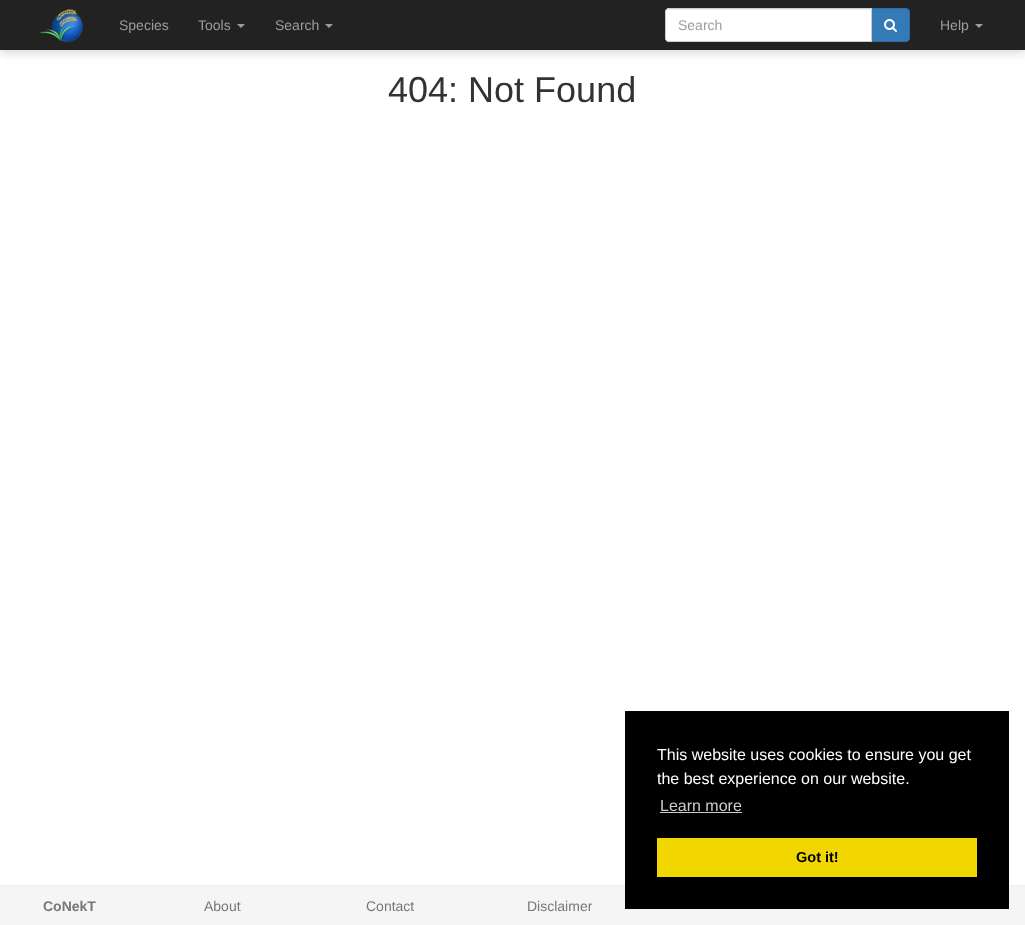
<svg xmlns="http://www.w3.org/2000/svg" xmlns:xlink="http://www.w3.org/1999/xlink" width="1025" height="925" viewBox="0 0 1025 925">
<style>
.cls-1{font:14px Liberation Sans;fill:#9d9d9d}
.cls-2{font:36px Liberation Sans;fill:#333333}
.cls-3{font:16px Liberation Sans;fill:#ffffff}
.cls-4{font:16px Liberation Sans;fill:#cccccc}
.cls-5{font:bold 14.5px Liberation Sans;fill:#000000}
.cls-6{font:bold 14px Liberation Sans;fill:#777777}
.cls-7{font:14px Liberation Sans;fill:#777777}
</style>
<rect width="100%" height="100%" fill="#ffffff"/>
<rect fill="#b1b1b1" fill-opacity="0.5" filter="blur(5px)" x="0" y="3" width="1025" height="50"/>
<rect fill="#222222" x="0" y="0" width="1025" height="50"/>
<image xlink:href="image0.png" x="39" y="8" width="45" height="35"/>
<path fill="#9d9d9d" d="M237 24H245L241 28Z"/>
<path fill="#9d9d9d" d="M325 24H333L329 28Z"/>
<path fill="#337ab7" stroke="#2e6da4" d="M871.5 8.5H906C908 8.5 909.5 10 909.5 12V38C909.5 40 908 41.5 906 41.5H871.5Z"/>
<path fill="#ffffff" d="M669 8H872V42H669C667 42 665 40 665 38V12C665 10 667 8 669 8Z"/>
<path fill="#ececec" d="M669 10H871V9H668C666 10 666 11 666 13C666 11 667 10 669 10Z"/>
<path fill="none" stroke="#cccccc" d="M669 8.5H871.5V41.5H669C667 41.5 665.5 40 665.5 38V12C665.5 10 667 8.5 669 8.5Z"/>
<image xlink:href="image1.png" x="884" y="19" width="13" height="13"/>
<path fill="#9d9d9d" d="M975 24H983L979 28Z"/>
<rect fill="#f5f5f5" x="0" y="886" width="1025" height="39"/>
<rect fill="#eeeeee" x="0" y="885" width="1025" height="1"/>
<rect fill="#000000" x="625" y="711" width="384" height="198"/>
<rect fill="#cccccc" x="660" y="812" width="82" height="1"/>
<rect fill="#f1d600" x="657" y="838" width="320" height="39"/>
<text class="cls-1" x="119" y="30">Species</text>
<text class="cls-1" x="198" y="30">Tools</text>
<text class="cls-1" x="275" y="30">Search</text>
<text class="cls-1" x="678" y="30">Search</text>
<text class="cls-1" x="940" y="30">Help</text>
<text class="cls-2" x="388" y="102">404: Not Found</text>
<text class="cls-3"><tspan x="657" y="760">This website uses cookies to ensure you get</tspan><tspan x="657" y="784">the best experience on our website.</tspan></text>
<text class="cls-4" x="660" y="811">Learn more</text>
<text class="cls-5" x="796" y="862">Got it!</text>
<text class="cls-6" x="43" y="911">CoNekT</text>
<text class="cls-7" x="204" y="911">About</text>
<text class="cls-7" x="366" y="911">Contact</text>
<text class="cls-7" x="527" y="911">Disclaimer</text>
</svg>
